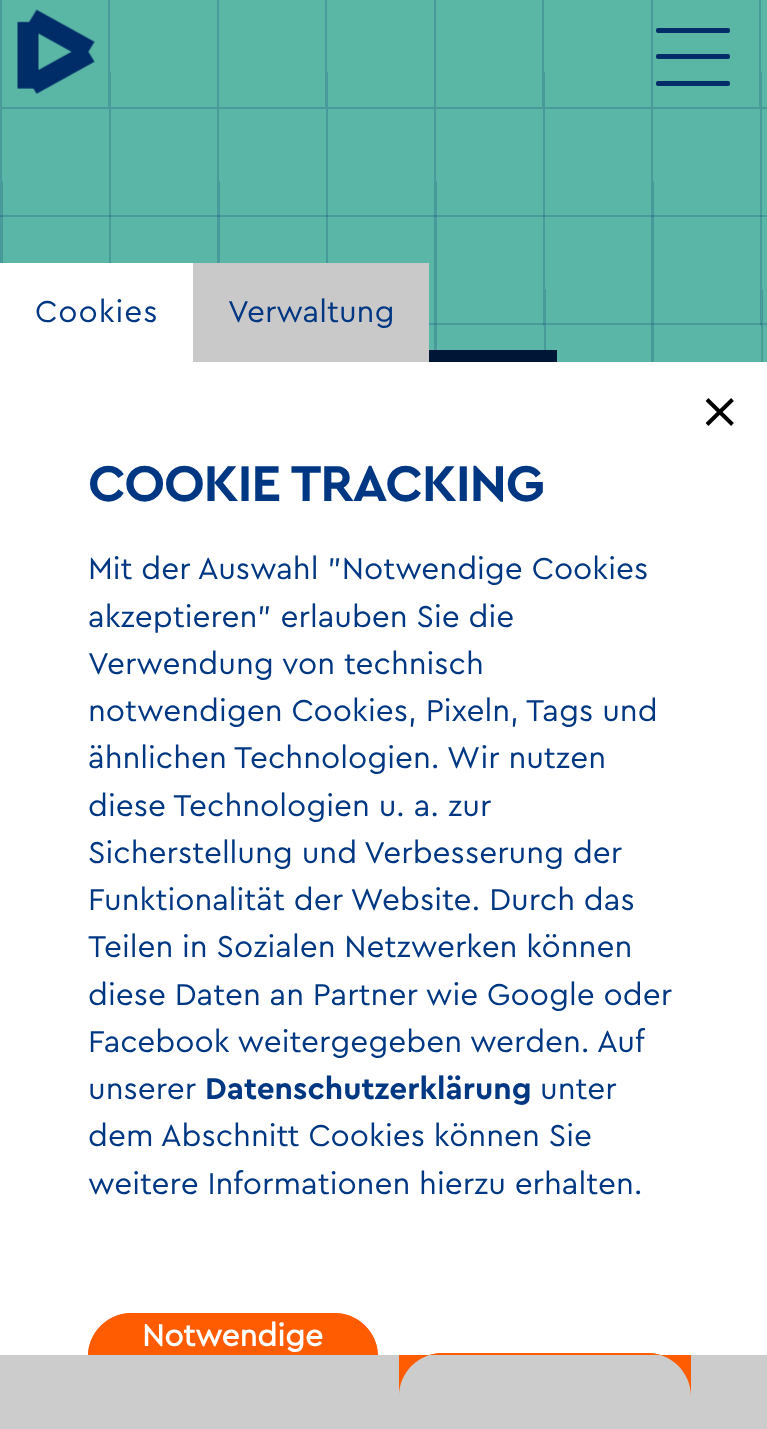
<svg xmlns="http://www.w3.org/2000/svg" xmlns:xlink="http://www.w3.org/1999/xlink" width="767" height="1429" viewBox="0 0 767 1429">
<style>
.cls-1{font:31.5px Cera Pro;letter-spacing:1px;fill:#003782}
.cls-2{font:31.5px Cera Pro;fill:#003782}
.cls-3{font:bold 52.5px Cera Pro;letter-spacing:-1.25px;fill:#003782}
.cls-4{font:bold 31.5px Cera Pro;fill:#003782}
.cls-5{font:bold 31.5px 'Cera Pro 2';fill:#ffffff}
</style>
<defs>
<linearGradient id="g1" gradientUnits="userSpaceOnUse" x1="0" y1="109" x2="217" y2="108"><stop offset="0.01" stop-color="#002c68" stop-opacity="0.2"/><stop offset="0.01" stop-color="#002c68" stop-opacity="0"/><stop offset="0.5" stop-color="#002c68" stop-opacity="0"/><stop offset="0.5" stop-color="#002c68" stop-opacity="0.2"/><stop offset="0.51" stop-color="#002c68" stop-opacity="0.2"/><stop offset="0.51" stop-color="#002c68" stop-opacity="0"/><stop offset="1" stop-color="#000000" stop-opacity="0"/></linearGradient>
<linearGradient id="g2" gradientUnits="userSpaceOnUse" x1="217" y1="109" x2="434" y2="108"><stop offset="0.01" stop-color="#489b9a"/><stop offset="0.01" stop-color="#5ab7a6"/><stop offset="0.5" stop-color="#5ab7a6"/><stop offset="0.5" stop-color="#489b9a"/><stop offset="0.51" stop-color="#489b9a"/><stop offset="0.51" stop-color="#5ab7a6"/><stop offset="1" stop-color="#5ab7a6"/></linearGradient>
<linearGradient id="g3" gradientUnits="userSpaceOnUse" x1="434" y1="109" x2="651" y2="108"><stop offset="0.01" stop-color="#489b9a"/><stop offset="0.01" stop-color="#5ab7a6"/><stop offset="0.5" stop-color="#5ab7a6"/><stop offset="0.5" stop-color="#489b9a"/><stop offset="0.51" stop-color="#489b9a"/><stop offset="0.51" stop-color="#5ab7a6"/><stop offset="1" stop-color="#5ab7a6"/></linearGradient>
<linearGradient id="g4" gradientUnits="userSpaceOnUse" x1="651" y1="109" x2="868" y2="108"><stop offset="0.01" stop-color="#489b9a"/><stop offset="0.01" stop-color="#5ab7a6"/><stop offset="0.5" stop-color="#5ab7a6"/><stop offset="0.5" stop-color="#489b9a"/><stop offset="0.51" stop-color="#489b9a"/><stop offset="0.51" stop-color="#5ab7a6"/><stop offset="1" stop-color="#5ab7a6"/></linearGradient>
<linearGradient id="g5" gradientUnits="userSpaceOnUse" x1="109" y1="217" x2="109" y2="0"><stop offset="0.01" stop-color="#489b9a"/><stop offset="0.01" stop-color="#5ab6a6"/><stop offset="0.5" stop-color="#5ab6a6"/><stop offset="0.5" stop-color="#489b9a"/><stop offset="0.51" stop-color="#489b9a"/><stop offset="0.51" stop-color="#5ab6a6"/><stop offset="1" stop-color="#5ab6a6"/></linearGradient>
<linearGradient id="g6" gradientUnits="userSpaceOnUse" x1="109" y1="434" x2="109" y2="217"><stop offset="0.01" stop-color="#489b9a"/><stop offset="0.01" stop-color="#5ab6a6"/><stop offset="0.5" stop-color="#5ab6a6"/><stop offset="0.5" stop-color="#489b9a"/><stop offset="0.51" stop-color="#489b9a"/><stop offset="0.51" stop-color="#5ab6a6"/><stop offset="1" stop-color="#5ab6a6"/></linearGradient>
<linearGradient id="g7" gradientUnits="userSpaceOnUse" x1="217" y1="109" x2="434" y2="108"><stop offset="0.01" stop-color="#002c68" stop-opacity="0.2"/><stop offset="0.01" stop-color="#002c68" stop-opacity="0"/><stop offset="0.5" stop-color="#002c68" stop-opacity="0"/><stop offset="0.5" stop-color="#002c68" stop-opacity="0.2"/><stop offset="0.51" stop-color="#002c68" stop-opacity="0.2"/><stop offset="0.51" stop-color="#002c68" stop-opacity="0"/><stop offset="1" stop-color="#000000" stop-opacity="0"/></linearGradient>
<linearGradient id="g8" gradientUnits="userSpaceOnUse" x1="434" y1="109" x2="651" y2="108"><stop offset="0.01" stop-color="#002c68" stop-opacity="0.2"/><stop offset="0.01" stop-color="#002c68" stop-opacity="0"/><stop offset="0.5" stop-color="#002c68" stop-opacity="0"/><stop offset="0.5" stop-color="#002c68" stop-opacity="0.2"/><stop offset="0.51" stop-color="#002c68" stop-opacity="0.2"/><stop offset="0.51" stop-color="#002c68" stop-opacity="0"/><stop offset="1" stop-color="#000000" stop-opacity="0"/></linearGradient>
<linearGradient id="g9" gradientUnits="userSpaceOnUse" x1="651" y1="109" x2="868" y2="108"><stop offset="0.01" stop-color="#002c68" stop-opacity="0.2"/><stop offset="0.01" stop-color="#002c68" stop-opacity="0"/><stop offset="0.5" stop-color="#002c68" stop-opacity="0"/><stop offset="0.5" stop-color="#002c68" stop-opacity="0.2"/><stop offset="0.51" stop-color="#002c68" stop-opacity="0.2"/><stop offset="0.51" stop-color="#002c68" stop-opacity="0"/><stop offset="1" stop-color="#000000" stop-opacity="0"/></linearGradient>
<clipPath id="clip1"><rect x="0" y="362" width="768" height="993"/></clipPath>
</defs>
<rect width="100%" height="100%" fill="#cccccc"/>
<rect fill="#5ab7a6" x="0" y="0" width="217" height="107"/>
<image xlink:href="image0.png" x="17" y="9" width="78" height="85"/>
<rect fill="url(#g1)" x="0" y="0" width="111" height="107"/>
<rect fill="url(#g2)" x="217" y="0" width="217" height="107"/>
<rect fill="url(#g3)" x="434" y="0" width="217" height="107"/>
<rect fill="url(#g4)" x="651" y="0" width="116" height="107"/>
<rect fill="#489b9a" x="0" y="107" width="767" height="2"/>
<rect fill="#002c68" x="656" y="54" width="74" height="5" rx="2"/>
<rect fill="#002c68" x="656" y="28" width="74" height="5" rx="2"/>
<rect fill="#002c68" x="656" y="81" width="74" height="5" rx="2"/>
<rect fill="url(#g5)" x="0" y="109" width="767" height="108"/>
<rect fill="url(#g6)" x="0" y="217" width="767" height="145"/>
<rect fill="url(#g1)" x="0" y="109" width="111" height="154"/>
<rect fill="url(#g7)" x="217" y="109" width="111" height="154"/>
<rect fill="url(#g8)" x="434" y="109" width="112" height="241"/>
<rect fill="url(#g9)" x="651" y="109" width="112" height="253"/>
<rect fill="#001636" x="429" y="350" width="128" height="12"/>
<rect fill="#ffffff" x="0" y="263" width="193" height="99"/>
<rect fill="#c9c9c9" x="193" y="263" width="236" height="99"/>
<rect fill="#ffffff" x="0" y="362" width="767" height="993"/>
<path fill="none" stroke="#000000" stroke-width="3.9" d="M707 424.5L732.5 399.5M707 399.5L732.5 424.5"/>
<path fill="#ff5c02" d="M131.5 1313H334.5C358.5 1313 378 1332.5 378 1356.5V1355H88V1356.5C88 1332.5 107.5 1313 131.5 1313Z"/>
<g clip-path="url(#clip1)">
<rect fill="none" stroke="#ff5c02" stroke-width="4" x="90" y="1315" width="286" height="83" rx="41.5"/>
</g>
<path fill="#ff5c02" d="M442.5 1353H647.5C671.5 1353 691 1372.5 691 1396.5V1355H399V1396.5C399 1372.5 418.5 1353 442.5 1353Z"/>
<g clip-path="url(#clip1)">
<rect fill="none" stroke="#ff5c02" stroke-width="4" x="401" y="1355" width="288" height="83" rx="41.5"/>
</g>
<text class="cls-1" x="35" y="322">Cookies</text>
<text class="cls-2" x="228" y="322">Verwaltung</text>
<text class="cls-3" x="88" y="501">COOKIE TRACKING</text>
<text class="cls-2"><tspan x="88" y="579">Mit der Auswahl "Notwendige Cookies</tspan><tspan x="88" y="627">akzeptieren" erlauben Sie die</tspan><tspan x="88" y="674">Verwendung von technisch</tspan><tspan x="88" y="721">notwendigen Cookies, Pixeln, Tags und</tspan><tspan x="88" y="768">ähnlichen Technologien. Wir nutzen</tspan><tspan x="88" y="816">diese Technologien u. a. zur</tspan><tspan x="88" y="863">Sicherstellung und Verbesserung der</tspan><tspan x="88" y="910">Funktionalität der Website. Durch das</tspan><tspan x="88" y="957">Teilen in Sozialen Netzwerken können</tspan><tspan x="88" y="1005">diese Daten an Partner wie Google oder</tspan><tspan x="88" y="1052">Facebook weitergegeben werden. Auf</tspan><tspan x="88" y="1099">unserer</tspan></text>
<text class="cls-4" x="205" y="1099">Datenschutzerklärung</text>
<text class="cls-2" x="540" y="1099">unter</text>
<text class="cls-2"><tspan x="88" y="1146">dem Abschnitt Cookies können Sie</tspan><tspan x="88" y="1194">weitere Informationen hierzu erhalten.</tspan></text>
<text class="cls-5" x="142" y="1346">Notwendige</text>
</svg>
